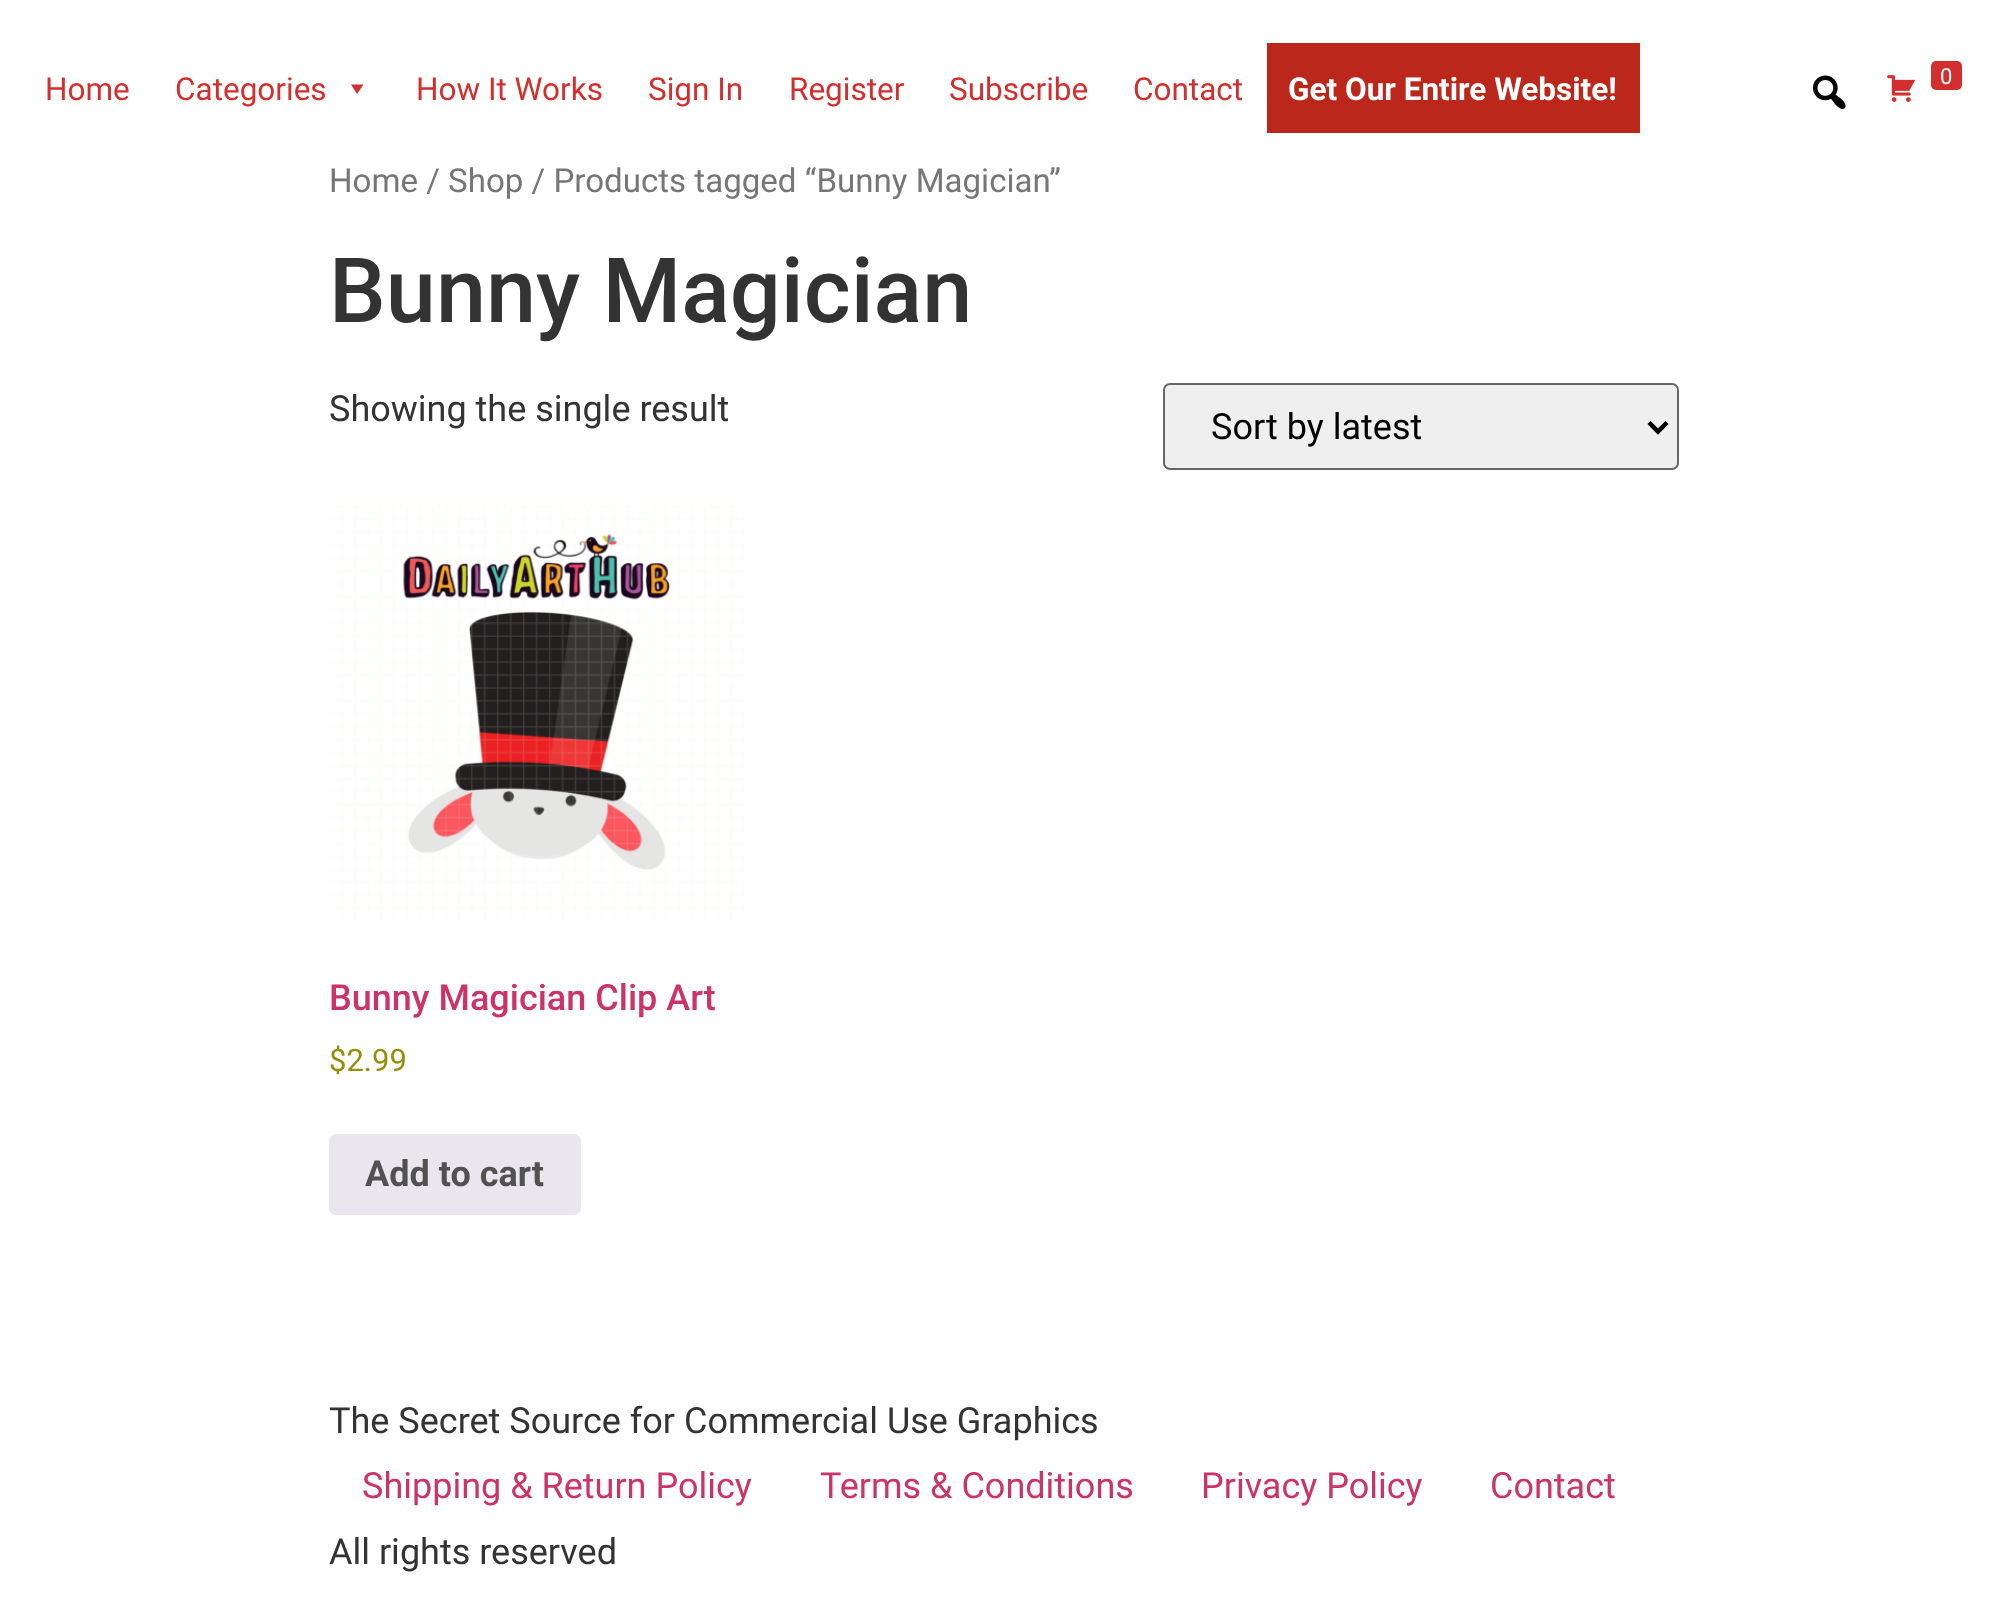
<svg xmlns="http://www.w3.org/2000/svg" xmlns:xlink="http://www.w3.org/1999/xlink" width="2005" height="1614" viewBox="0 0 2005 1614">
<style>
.cls-1{font:31.5px Roboto;fill:#d32f2f}
.cls-2{font:bold 31.5px Roboto;fill:#ffffff}
.cls-3{font:22px Roboto;fill:#ffffff}
.cls-4{font:33.1px Roboto;fill:#767676}
.cls-5{font:500 90px Roboto;fill:#333333}
.cls-6{font:36px Roboto;fill:#333333}
.cls-7{font:36px Roboto;fill:#000000}
.cls-8{font:500 36px Roboto;fill:#cc3366}
.cls-9{font:31px Roboto;fill:#958e09}
.cls-10{font:bold 36px Roboto;fill:#515151}
.cls-11{font:36px Roboto;fill:#cc3366}
</style>
<rect width="100%" height="100%" fill="#ffffff"/>
<path fill="#d32f2f" d="M363.5 84.5L357 94L351 84.5Z"/>
<rect fill="#bb271a" x="1267" y="43" width="373" height="90"/>
<image xlink:href="image0.png" x="1813" y="75" width="33" height="34"/>
<image xlink:href="image1.png" x="1887" y="75" width="29" height="27"/>
<rect fill="#d32f2f" x="1931" y="61" width="31" height="29" rx="5"/>
<rect fill="#efefef" stroke="#666666" stroke-width="2" x="1164" y="384" width="514" height="85" rx="6"/>
<path fill="none" stroke="#000000" stroke-width="4.5" d="M1649 422.5L1658 431.5L1667 422.5"/>
<image xlink:href="image2.png" x="329" y="506" width="416" height="416"/>
<rect fill="#e9e6ed" x="329" y="1134" width="252" height="81" rx="7"/>
<text class="cls-1" x="45" y="100">Home</text>
<text class="cls-1" x="175" y="100">Categories</text>
<text class="cls-1" x="416" y="100">How It Works</text>
<text class="cls-1" x="648" y="100">Sign In</text>
<text class="cls-1" x="789" y="100">Register</text>
<text class="cls-1" x="949" y="100">Subscribe</text>
<text class="cls-1" x="1133" y="100">Contact</text>
<text class="cls-2" x="1288" y="100">Get Our Entire Website!</text>
<text class="cls-3" x="1940" y="84">0</text>
<text class="cls-4" x="329" y="192">Home / Shop / Products tagged “Bunny Magician”</text>
<text class="cls-5" x="329" y="322">Bunny Magician</text>
<text class="cls-6" x="329" y="421">Showing the single result</text>
<text class="cls-7" x="1211" y="439">Sort by latest</text>
<text class="cls-8" x="329" y="1010">Bunny Magician Clip Art</text>
<text class="cls-9" x="329" y="1071">$2.99</text>
<text class="cls-10" x="365" y="1186">Add to cart</text>
<text class="cls-6" x="329" y="1433">The Secret Source for Commercial Use Graphics</text>
<text class="cls-11" x="362" y="1498">Shipping &amp; Return Policy</text>
<text class="cls-11" x="820" y="1498">Terms &amp; Conditions</text>
<text class="cls-11" x="1201" y="1498">Privacy Policy</text>
<text class="cls-11" x="1490" y="1498">Contact</text>
<text class="cls-6" x="329" y="1564">All rights reserved</text>
</svg>
